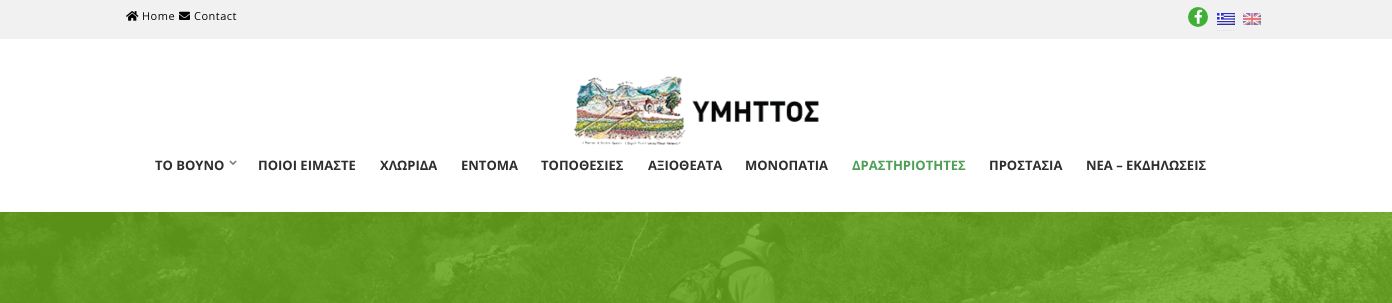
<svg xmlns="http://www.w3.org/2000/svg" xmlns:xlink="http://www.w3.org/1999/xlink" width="1392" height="303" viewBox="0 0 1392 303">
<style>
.cls-1{font:11px Open Sans;letter-spacing:0.5px;fill:#000000}
.cls-2{font:bold 13px Open Sans;fill:#2e2e2e}
.cls-3{font:bold 13px Open Sans;fill:#4e9f57}
</style>
<rect width="100%" height="100%" fill="#ffffff"/>
<rect fill="#f1f1f1" x="0" y="0" width="1392" height="39"/>
<image xlink:href="image0.png" x="126" y="11" width="13" height="10"/>
<image xlink:href="image1.png" x="179" y="11" width="11" height="9"/>
<circle fill="#40af36" cx="1198" cy="17" r="10"/>
<image xlink:href="image2.png" x="1194" y="9" width="9" height="15"/>
<path fill="none" stroke="#dedede" stroke-dasharray="1 1" d="M1217 30.5H1235"/>
<image xlink:href="image3.png" x="1217" y="13" width="18" height="12"/>
<image xlink:href="image4.png" x="1243" y="13" width="18" height="12"/>
<image xlink:href="image5.png" x="574" y="76" width="245" height="69"/>
<image xlink:href="image6.png" x="229" y="160" width="8" height="5"/>
<image xlink:href="image7.png" x="0" y="212" width="1392" height="91"/>
<text class="cls-1" x="142" y="20">Home</text>
<text class="cls-1" x="194" y="20">Contact</text>
<text class="cls-2" x="155" y="170">ΤΟ ΒΟΥΝΟ</text>
<text class="cls-2" x="258" y="170">ΠΟΙΟΙ ΕΙΜΑΣΤΕ</text>
<text class="cls-2" x="380" y="170">ΧΛΩΡΙΔΑ</text>
<text class="cls-2" x="461" y="170">ΕΝΤΟΜΑ</text>
<text class="cls-2" x="541" y="170">ΤΟΠΟΘΕΣΙΕΣ</text>
<text class="cls-2" x="648" y="170">ΑΞΙΟΘΕΑΤΑ</text>
<text class="cls-2" x="745" y="170">ΜΟΝΟΠΑΤΙΑ</text>
<text class="cls-3" x="852" y="170">ΔΡΑΣΤΗΡΙΟΤΗΤΕΣ</text>
<text class="cls-2" x="989" y="170">ΠΡΟΣΤΑΣΙΑ</text>
<text class="cls-2" x="1086" y="170">ΝΕΑ – ΕΚΔΗΛΩΣΕΙΣ</text>
</svg>
